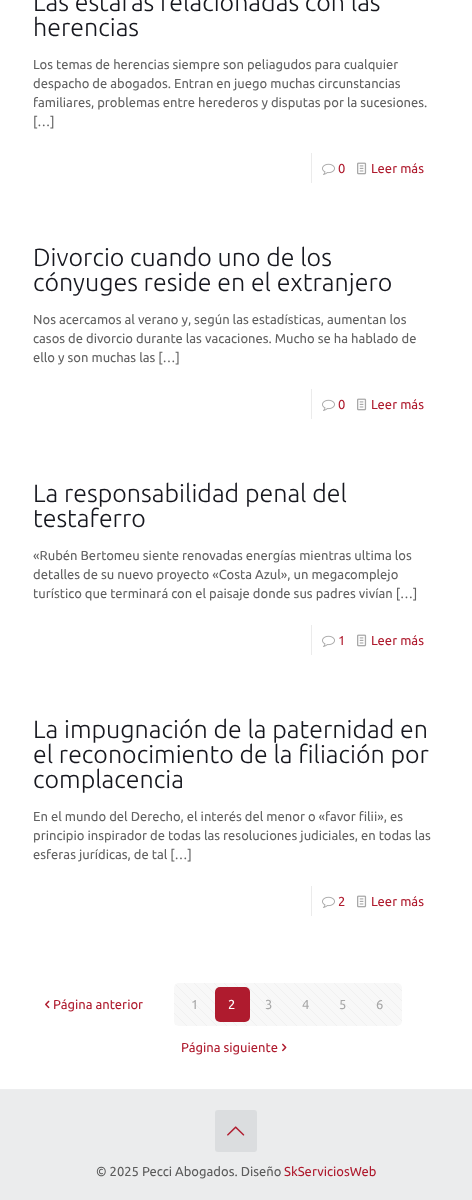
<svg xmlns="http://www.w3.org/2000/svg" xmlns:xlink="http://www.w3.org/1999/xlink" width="472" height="1200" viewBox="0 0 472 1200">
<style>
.cls-1{font:300 25px Ubuntu;fill:#16171e}
.cls-2{font:13px Ubuntu;fill:#626262}
.cls-3{font:13px Ubuntu;fill:#af1b2e}
.cls-4{font:13px Ubuntu;fill:#a8a8a8}
.cls-5{font:13px Ubuntu;fill:#ffffff}
.cls-6{font:13px Ubuntu;fill:#5b5b5b}
</style>
<rect width="100%" height="100%" fill="#ffffff"/>
<rect fill="#ebebeb" x="311" y="153" width="1" height="30"/>
<image xlink:href="image0.png" x="322" y="163" width="13" height="12"/>
<image xlink:href="image1.png" x="357" y="162" width="10" height="13"/>
<rect fill="#ebebeb" x="311" y="389" width="1" height="30"/>
<image xlink:href="image0.png" x="322" y="399" width="13" height="12"/>
<image xlink:href="image1.png" x="357" y="398" width="10" height="13"/>
<rect fill="#ebebeb" x="311" y="625" width="1" height="30"/>
<image xlink:href="image0.png" x="322" y="635" width="13" height="12"/>
<image xlink:href="image1.png" x="357" y="634" width="10" height="13"/>
<rect fill="#ebebeb" x="311" y="886" width="1" height="30"/>
<image xlink:href="image0.png" x="322" y="896" width="13" height="12"/>
<image xlink:href="image1.png" x="357" y="895" width="10" height="13"/>
<image xlink:href="image2.png" x="45" y="1000" width="5" height="9"/>
<rect fill="#f8f8f8" x="174" y="983" width="228" height="43" rx="5"/>
<image xlink:href="image3.png" x="174" y="983" width="228" height="43"/>
<rect fill="#af1b2e" x="215" y="987" width="35" height="35" rx="5"/>
<image xlink:href="image4.png" x="282" y="1043" width="5" height="9"/>
<rect fill="#ebeced" x="0" y="1090" width="472" height="110"/>
<rect fill="#edeeef" x="0" y="1089" width="472" height="1"/>
<rect fill="#dbdddf" x="215" y="1110" width="42" height="42" rx="3"/>
<image xlink:href="image5.png" x="227" y="1126" width="18" height="10"/>
<text class="cls-1"><tspan x="33" y="11">Las estafas relacionadas con las</tspan><tspan x="33" y="36">herencias</tspan></text>
<text class="cls-2"><tspan x="33" y="69">Los temas de herencias siempre son peliagudos para cualquier</tspan><tspan x="33" y="88">despacho de abogados. Entran en juego muchas circunstancias</tspan><tspan x="33" y="107">familiares, problemas entre herederos y disputas por la sucesiones.</tspan><tspan x="33" y="126">[…]</tspan></text>
<text class="cls-3" x="338" y="173">0</text>
<text class="cls-3" x="371" y="173">Leer más</text>
<text class="cls-1"><tspan x="33" y="266">Divorcio cuando uno de los</tspan><tspan x="33" y="291">cónyuges reside en el extranjero</tspan></text>
<text class="cls-2"><tspan x="33" y="324">Nos acercamos al verano y, según las estadísticas, aumentan los</tspan><tspan x="33" y="343">casos de divorcio durante las vacaciones. Mucho se ha hablado de</tspan><tspan x="33" y="362">ello y son muchas las […]</tspan></text>
<text class="cls-3" x="338" y="409">0</text>
<text class="cls-3" x="371" y="409">Leer más</text>
<text class="cls-1"><tspan x="33" y="502">La responsabilidad penal del</tspan><tspan x="33" y="527">testaferro</tspan></text>
<text class="cls-2"><tspan x="33" y="560">«Rubén Bertomeu siente renovadas energías mientras ultima los</tspan><tspan x="33" y="579">detalles de su nuevo proyecto «Costa Azul», un megacomplejo</tspan><tspan x="33" y="598">turístico que terminará con el paisaje donde sus padres vivían […]</tspan></text>
<text class="cls-3" x="338" y="645">1</text>
<text class="cls-3" x="371" y="645">Leer más</text>
<text class="cls-1"><tspan x="33" y="738">La impugnación de la paternidad en</tspan><tspan x="33" y="763">el reconocimiento de la filiación por</tspan><tspan x="33" y="788">complacencia</tspan></text>
<text class="cls-2"><tspan x="33" y="821">En el mundo del Derecho, el interés del menor o «favor filii», es</tspan><tspan x="33" y="840">principio inspirador de todas las resoluciones judiciales, en todas las</tspan><tspan x="33" y="859">esferas jurídicas, de tal […]</tspan></text>
<text class="cls-3" x="338" y="906">2</text>
<text class="cls-3" x="371" y="906">Leer más</text>
<text class="cls-3" x="53" y="1009">Página anterior</text>
<text class="cls-4" x="191" y="1009">1</text>
<text class="cls-5" x="228" y="1009">2</text>
<text class="cls-4" x="265" y="1009">3</text>
<text class="cls-4" x="302" y="1009">4</text>
<text class="cls-4" x="339" y="1009">5</text>
<text class="cls-4" x="376" y="1009">6</text>
<text class="cls-3" x="181" y="1052">Página siguiente</text>
<text class="cls-6" x="96" y="1176">© 2025 Pecci Abogados. Diseño</text>
<text class="cls-3" x="284" y="1176">SkServiciosWeb</text>
</svg>
